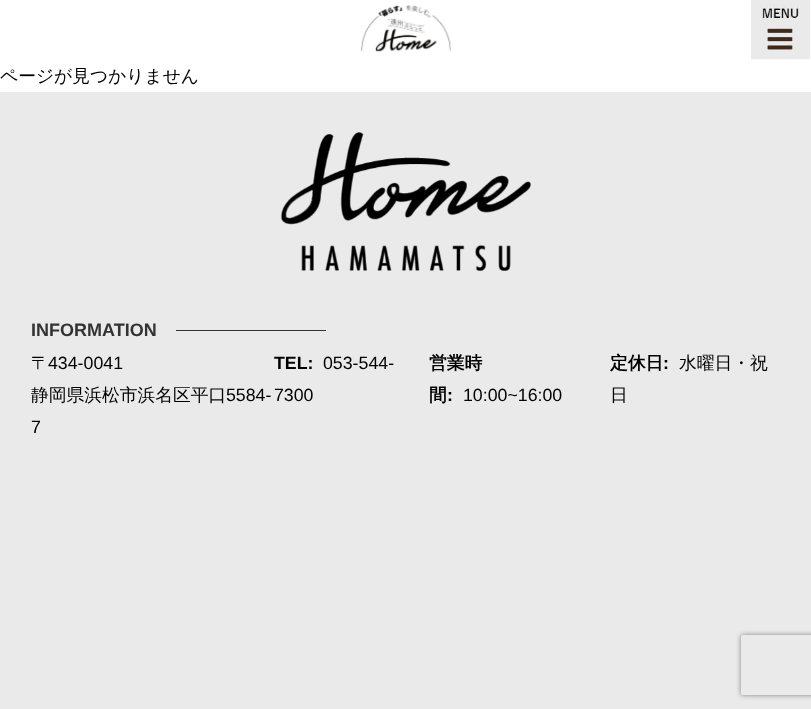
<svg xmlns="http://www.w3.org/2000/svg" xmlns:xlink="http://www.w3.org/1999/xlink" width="811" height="709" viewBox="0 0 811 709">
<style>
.cls-1{font:500 17.75px WenQuanYi Zen Hei;fill:#000000}
.cls-2{font:bold 18px Liberation Sans;fill:#333333}
.cls-3{font:17.75px Liberation Sans;fill:#000000}
.cls-4{font:bold 17.75px Liberation Sans;fill:#000000}
.cls-5{font:bold 17.75px WenQuanYi Zen Hei;fill:#000000}
</style>
<defs>
<clipPath id="clip1"><path d="M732 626H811V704H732ZM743 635H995C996 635 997 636 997 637V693C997 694 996 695 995 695H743C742 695 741 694 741 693V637C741 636 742 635 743 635Z" clip-rule="evenodd"/></clipPath>
</defs>
<rect width="100%" height="100%" fill="#ffffff"/>
<image xlink:href="image0.png" x="360" y="5" width="91" height="47"/>
<image xlink:href="image1.png" x="751" y="0" width="60" height="60"/>
<rect fill="#eaeaea" x="0" y="92" width="811" height="617"/>
<image xlink:href="image2.png" x="280" y="132" width="251" height="139"/>
<rect fill="#333333" x="176" y="330" width="150" height="1"/>
<g clip-path="url(#clip1)">
<rect fill="#808080" filter="blur(2.5px)" x="741" y="635" width="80" height="60" rx="2"/>
</g>
<text class="cls-1" x="0" y="82">ページが見つかりません</text>
<text class="cls-2" x="31" y="336">INFORMATION</text>
<text class="cls-1" x="31" y="369">〒</text>
<text class="cls-3" x="48" y="369">434-0041</text>
<text class="cls-1" x="31" y="401">静岡県浜松市浜名区平口</text>
<text class="cls-3" x="226" y="401">5584-</text>
<text class="cls-3" x="31" y="433">7</text>
<text class="cls-4" x="274" y="369">TEL:</text>
<text class="cls-3" x="323" y="369">053-544-</text>
<text class="cls-3" x="274" y="401">7300</text>
<text class="cls-5"><tspan x="429" y="369">営業時</tspan><tspan x="429" y="401">間</tspan></text>
<text class="cls-4" x="447" y="401">:</text>
<text class="cls-3" x="463" y="401">10:00~16:00</text>
<text class="cls-5" x="610" y="369">定休日</text>
<text class="cls-4" x="663" y="369">:</text>
<text class="cls-1" x="679" y="369">水曜日・祝</text>
<text class="cls-1" x="610" y="401">日</text>
</svg>
